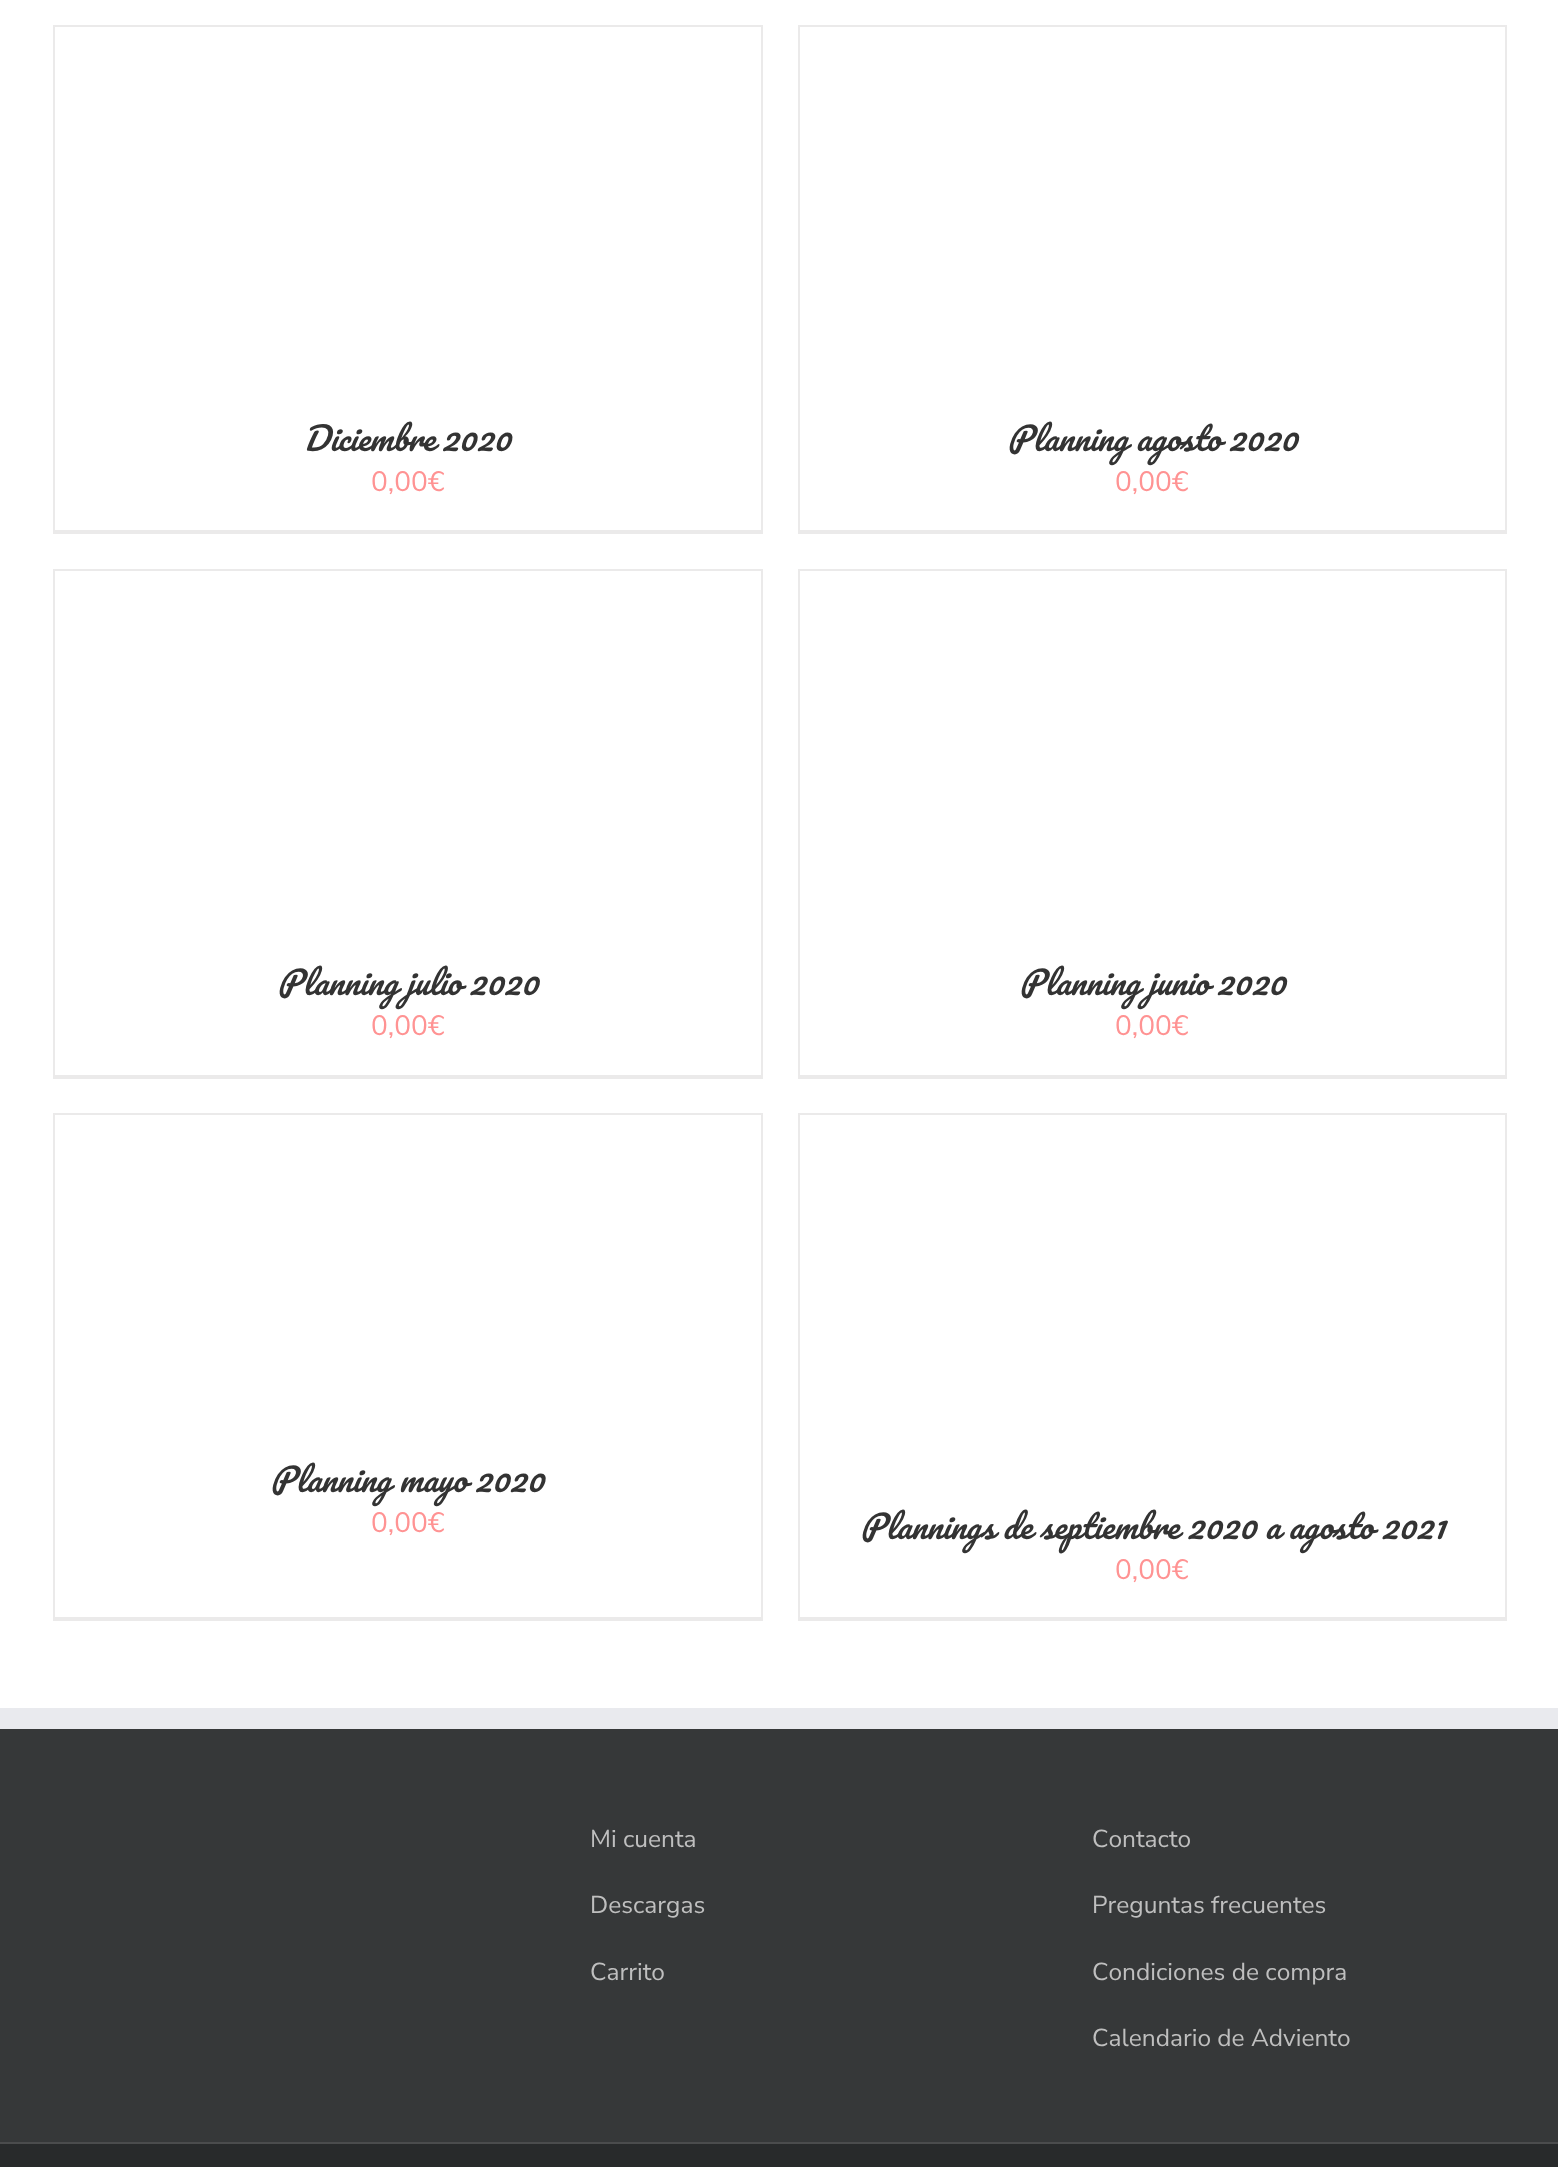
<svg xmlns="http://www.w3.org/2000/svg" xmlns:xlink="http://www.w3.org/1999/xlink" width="1558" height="2167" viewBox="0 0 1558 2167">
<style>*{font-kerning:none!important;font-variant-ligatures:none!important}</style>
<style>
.cls-1{font:italic 31.5px Pacifico;fill:#333333}
.cls-2{font:28px Nunito Sans;fill:#ff9393}
.cls-3{font:24.5px Nunito Sans;fill:#bfbfbf}
</style>
<rect width="100%" height="100%" fill="#ffffff"/>
<rect fill="#ebeaea" x="53" y="25" width="710" height="2"/>
<rect fill="#ebeaea" x="761" y="25" width="2" height="509"/>
<rect fill="#ebeaea" x="53" y="530" width="710" height="4"/>
<rect fill="#ebeaea" x="53" y="25" width="2" height="509"/>
<rect fill="#ebeaea" x="798" y="25" width="709" height="2"/>
<rect fill="#ebeaea" x="1505" y="25" width="2" height="509"/>
<rect fill="#ebeaea" x="798" y="530" width="709" height="4"/>
<rect fill="#ebeaea" x="798" y="25" width="2" height="509"/>
<rect fill="#ebeaea" x="53" y="569" width="710" height="2"/>
<rect fill="#ebeaea" x="761" y="569" width="2" height="509"/>
<rect fill="#ebeaea" x="53" y="1075" width="710" height="4"/>
<rect fill="#ebeaea" x="53" y="569" width="2" height="509"/>
<rect fill="#ebeaea" x="798" y="569" width="709" height="2"/>
<rect fill="#ebeaea" x="1505" y="569" width="2" height="509"/>
<rect fill="#ebeaea" x="798" y="1075" width="709" height="4"/>
<rect fill="#ebeaea" x="798" y="569" width="2" height="509"/>
<rect fill="#ebeaea" x="53" y="1113" width="710" height="2"/>
<rect fill="#ebeaea" x="761" y="1113" width="2" height="508"/>
<rect fill="#ebeaea" x="53" y="1617" width="710" height="4"/>
<rect fill="#ebeaea" x="53" y="1113" width="2" height="508"/>
<rect fill="#ebeaea" x="798" y="1113" width="709" height="2"/>
<rect fill="#ebeaea" x="1505" y="1113" width="2" height="508"/>
<rect fill="#ebeaea" x="798" y="1617" width="709" height="4"/>
<rect fill="#ebeaea" x="798" y="1113" width="2" height="508"/>
<rect fill="#363839" x="0" y="1729" width="1558" height="413"/>
<rect fill="#e9eaee" x="0" y="1708" width="1558" height="21"/>
<rect fill="#282a2b" x="0" y="2144" width="1558" height="23"/>
<rect fill="#4b4c4d" x="0" y="2142" width="1558" height="2"/>
<text class="cls-1" x="303" y="451" word-spacing="-1">Diciembre 2020</text>
<text class="cls-2" x="371" y="491">0,00€</text>
<text class="cls-1" x="1007" y="451">Planning agosto 2020</text>
<text class="cls-2" x="1115" y="491">0,00€</text>
<text class="cls-1" x="277" y="995">Planning julio 2020</text>
<text class="cls-2" x="371" y="1035">0,00€</text>
<text class="cls-1" x="1019" y="995">Planning junio 2020</text>
<text class="cls-2" x="1115" y="1035">0,00€</text>
<text class="cls-1" x="270" y="1492">Planning mayo 2020</text>
<text class="cls-2" x="371" y="1532">0,00€</text>
<text class="cls-1" x="860" y="1539" word-spacing="0.25">Plannings de septiembre 2020 a agosto 2021</text>
<text class="cls-2" x="1115" y="1579">0,00€</text>
<text class="cls-3" x="590" y="1847">Mi cuenta</text>
<text class="cls-3" x="590" y="1913">Descargas</text>
<text class="cls-3" x="590" y="1980">Carrito</text>
<text class="cls-3" x="1092" y="1847">Contacto</text>
<text class="cls-3" x="1092" y="1913">Preguntas frecuentes</text>
<text class="cls-3" x="1092" y="1980">Condiciones de compra</text>
<text class="cls-3" x="1092" y="2046">Calendario de Adviento</text>
</svg>
